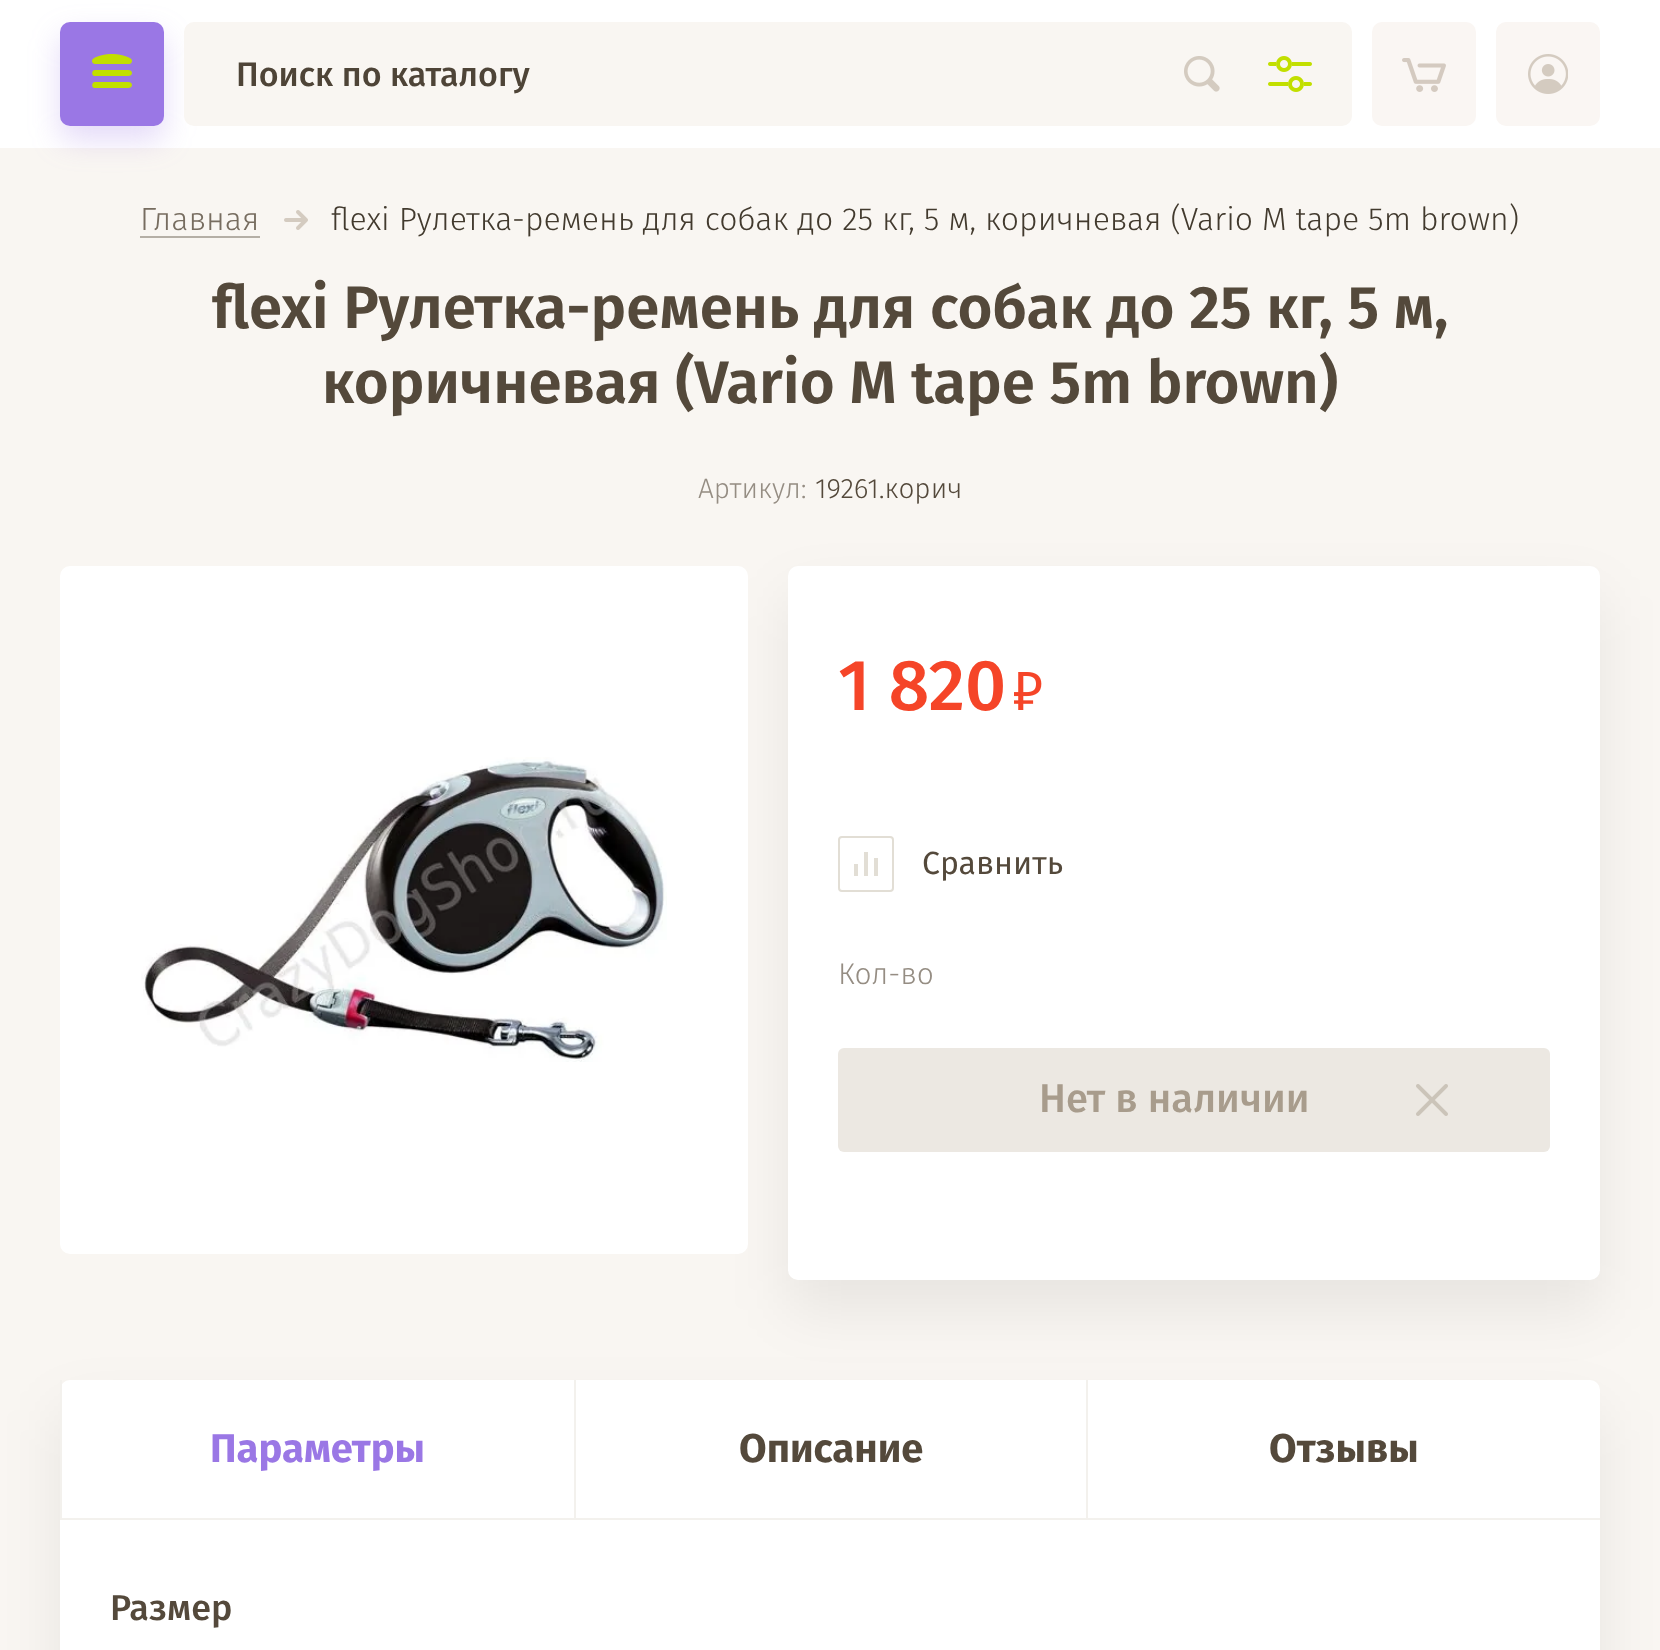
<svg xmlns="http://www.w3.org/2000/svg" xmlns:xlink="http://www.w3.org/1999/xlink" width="1660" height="1650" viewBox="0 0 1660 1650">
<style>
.cls-1{font:500 34px Fira Sans;fill:#4e4437}
.cls-2{font:300 32px Fira Sans;fill:#776d60}
.cls-3{font:300 32px Fira Sans;fill:#423a2e}
.cls-4{font:600 60px Fira Sans;fill:#54493b}
.cls-5{font:300 28px Fira Sans;fill:#958d83}
.cls-6{font:300 28px Fira Sans;fill:#54493b}
.cls-7{font:500 72px Fira Sans;fill:#f54528}
.cls-8{font:32px Fira Sans;fill:#54493b}
.cls-9{font:300 30px Fira Sans;fill:#958d83}
.cls-10{font:500 40px Fira Sans;fill:#a89c8c}
.cls-11{font:bold 40px Fira Sans;fill:#9a77e5}
.cls-12{font:bold 40px Fira Sans;fill:#54493b}
.cls-13{font:500 36px Fira Sans;fill:#54493b}
</style>
<defs>
<clipPath id="clip1"><rect x="92" y="70" width="40" height="6"/></clipPath>
<clipPath id="clip2"><rect x="92" y="82" width="40" height="6"/></clipPath>
</defs>
<rect width="100%" height="100%" fill="#f9f6f2"/>
<rect fill="#ffffff" x="0" y="0" width="1660" height="148"/>
<rect fill="#9a77e5" fill-opacity="0.27" filter="blur(15px)" x="60" y="36" width="104" height="104" rx="10"/>
<rect fill="#9a77e5" x="60" y="22" width="104" height="104" rx="10"/>
<g clip-path="url(#clip1)">
<path fill="#c2df00" d="M95 70H123C125 70 132 69 132 73C132 77 125 76 123 76H94C91 75 92 70 95 70Z"/>
</g>
<image xlink:href="image0.png" x="92" y="54" width="40" height="10"/>
<g clip-path="url(#clip2)">
<path fill="#c2df00" d="M95 82H123C125 82 132 81 132 85C132 89 125 88 123 88H94C91 87 92 82 95 82Z"/>
</g>
<rect fill="#f9f6f2" x="184" y="22" width="1168" height="104" rx="10"/>
<image xlink:href="image1.png" x="1184" y="56" width="36" height="36"/>
<image xlink:href="image2.png" x="1268" y="56" width="44" height="36"/>
<rect fill="#faf6f3" x="1372" y="22" width="104" height="104" rx="10"/>
<image xlink:href="image3.png" x="1402" y="58" width="44" height="34"/>
<rect fill="#faf6f3" x="1496" y="22" width="104" height="104" rx="10"/>
<image xlink:href="image4.png" x="1528" y="54" width="40" height="40"/>
<rect fill="#b5afa6" x="140" y="236" width="120" height="2"/>
<image xlink:href="image5.png" x="284" y="210" width="24" height="20"/>
<rect fill="#000000" fill-opacity="0.07" filter="blur(30px)" x="788" y="596" width="812" height="714" rx="10"/>
<rect fill="#ffffff" x="60" y="566" width="688" height="688" rx="10"/>
<image xlink:href="image6.png" x="141" y="757" width="526" height="305"/>
<rect fill="#ffffff" x="788" y="566" width="812" height="714" rx="10"/>
<image xlink:href="image7.png" x="1014" y="672" width="28" height="38"/>
<image xlink:href="image8.png" x="854" y="852" width="24" height="24"/>
<rect fill="none" stroke="#e2ded5" stroke-width="2" x="839" y="837" width="54" height="54" rx="3"/>
<rect fill="#ece8e2" x="838" y="1048" width="712" height="104" rx="6"/>
<image xlink:href="image9.png" x="1416" y="1084" width="32" height="32"/>
<rect fill="#000000" fill-opacity="0.07" filter="blur(30px)" x="60" y="1410" width="1540" height="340" rx="10"/>
<rect fill="#ffffff" x="60" y="1380" width="1540" height="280" rx="10"/>
<rect fill="#f3f1ed" x="60" y="1518" width="1540" height="2"/>
<rect fill="#f3f1ed" x="60" y="1380" width="2" height="138"/>
<rect fill="#f3f1ed" x="574" y="1380" width="2" height="138"/>
<rect fill="#f3f1ed" x="1086" y="1380" width="2" height="138"/>
<text class="cls-1" x="236" y="86">Поиск по каталогу</text>
<text class="cls-2" x="140" y="230">Главная</text>
<text class="cls-3" x="331" y="230">flexi Рулетка-ремень для собак до 25 кг, 5 м, коричневая (Vario M tape 5m brown)</text>
<text class="cls-4" x="212" y="328">flexi Рулетка-ремень для собак до 25 кг, 5 м,</text>
<text class="cls-4" x="322" y="403">коричневая (Vario M tape 5m brown)</text>
<text class="cls-5" x="698" y="498">Артикул:</text>
<text class="cls-6" x="815" y="498">19261.корич</text>
<text class="cls-7" x="838" y="710">1 820</text>
<text class="cls-8" x="922" y="874">Сравнить</text>
<text class="cls-9" x="838" y="984">Кол-во</text>
<text class="cls-10" x="1039" y="1112">Нет в наличии</text>
<text class="cls-11" x="210" y="1462">Параметры</text>
<text class="cls-12" x="739" y="1462">Описание</text>
<text class="cls-12" x="1269" y="1462">Отзывы</text>
<text class="cls-13" x="110" y="1620">Размер</text>
</svg>
